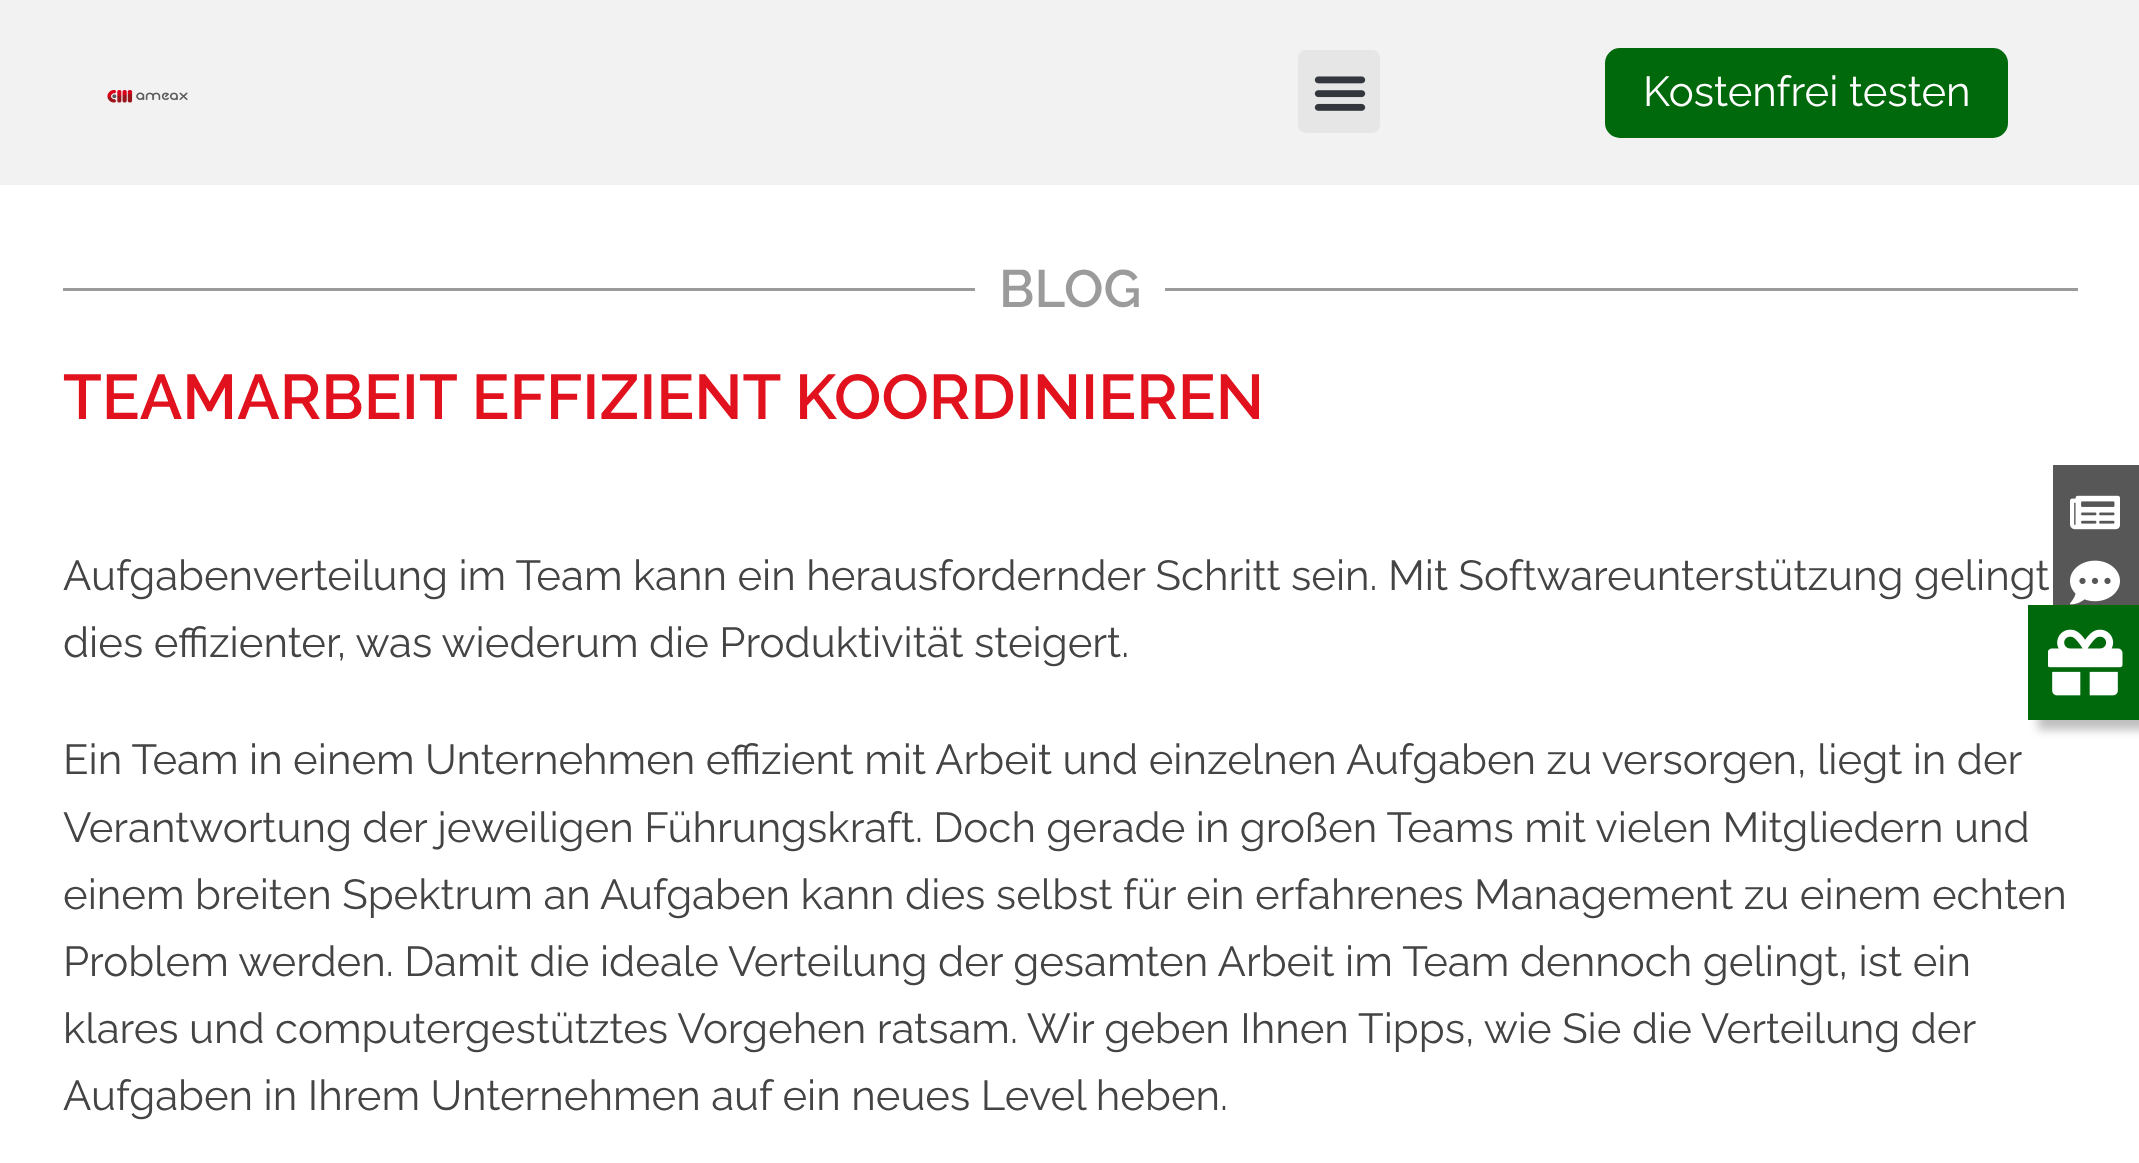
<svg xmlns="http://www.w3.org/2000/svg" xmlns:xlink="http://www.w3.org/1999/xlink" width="2139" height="1163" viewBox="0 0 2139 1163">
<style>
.cls-1{font:42px Raleway;fill:#ffffff}
.cls-2{font:600 52.5px Raleway;fill:#9b9b9b}
.cls-3{font:600 63px Raleway;fill:#e1121d}
.cls-4{font:42px Raleway;fill:#444444}
</style>
<rect width="100%" height="100%" fill="#ffffff"/>
<rect fill="#f2f2f2" x="0" y="0" width="2139" height="185"/>
<image xlink:href="image0.png" x="107" y="90" width="81" height="13"/>
<rect fill="#e6e6e6" x="1298" y="50" width="82" height="83" rx="8"/>
<image xlink:href="image1.png" x="1314" y="76" width="52" height="35"/>
<rect fill="#00690b" x="1605" y="48" width="403" height="90" rx="15"/>
<rect fill="#575757" x="2053" y="465" width="86" height="140"/>
<image xlink:href="image2.png" x="2070" y="495" width="50" height="35"/>
<image xlink:href="image3.png" x="2070" y="560" width="50" height="45"/>
<rect fill="#000000" fill-opacity="0.25" filter="blur(5px)" x="2038" y="615" width="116" height="115"/>
<rect fill="#00690b" x="2028" y="605" width="111" height="115"/>
<image xlink:href="image4.png" x="2048" y="629" width="75" height="67"/>
<rect fill="#9b9b9b" x="63" y="288" width="912" height="3"/>
<rect fill="#9b9b9b" x="1165" y="288" width="913" height="3"/>
<text class="cls-1" x="1643" y="106">Kostenfrei testen</text>
<text class="cls-2" x="999" y="307">BLOG</text>
<text class="cls-3" x="63" y="419">TEAMARBEIT EFFIZIENT KOORDINIEREN</text>
<text class="cls-4"><tspan x="63" y="590" word-spacing="-0.25">Aufgabenverteilung im Team kann ein herausfordernder Schritt sein. Mit Softwareunterstützung gelingt</tspan><tspan x="63" y="657" word-spacing="-0.25">dies effizienter, was wiederum die Produktivität steigert.</tspan></text>
<text class="cls-4"><tspan x="63" y="774" word-spacing="-0.25">Ein Team in einem Unternehmen effizient mit Arbeit und einzelnen Aufgaben zu versorgen, liegt in der</tspan><tspan x="63" y="842" word-spacing="-0.25">Verantwortung der jeweiligen Führungskraft. Doch gerade in großen Teams mit vielen Mitgliedern und</tspan><tspan x="63" y="909" word-spacing="-0.2">einem breiten Spektrum an Aufgaben kann dies selbst für ein erfahrenes Management zu einem echten</tspan><tspan x="63" y="976" word-spacing="-0.1">Problem werden. Damit die ideale Verteilung der gesamten Arbeit im Team dennoch gelingt, ist ein</tspan><tspan x="63" y="1043" word-spacing="-0.25">klares und computergestütztes Vorgehen ratsam. Wir geben Ihnen Tipps, wie Sie die Verteilung der</tspan><tspan x="63" y="1110" word-spacing="-0.2">Aufgaben in Ihrem Unternehmen auf ein neues Level heben.</tspan></text>
</svg>
